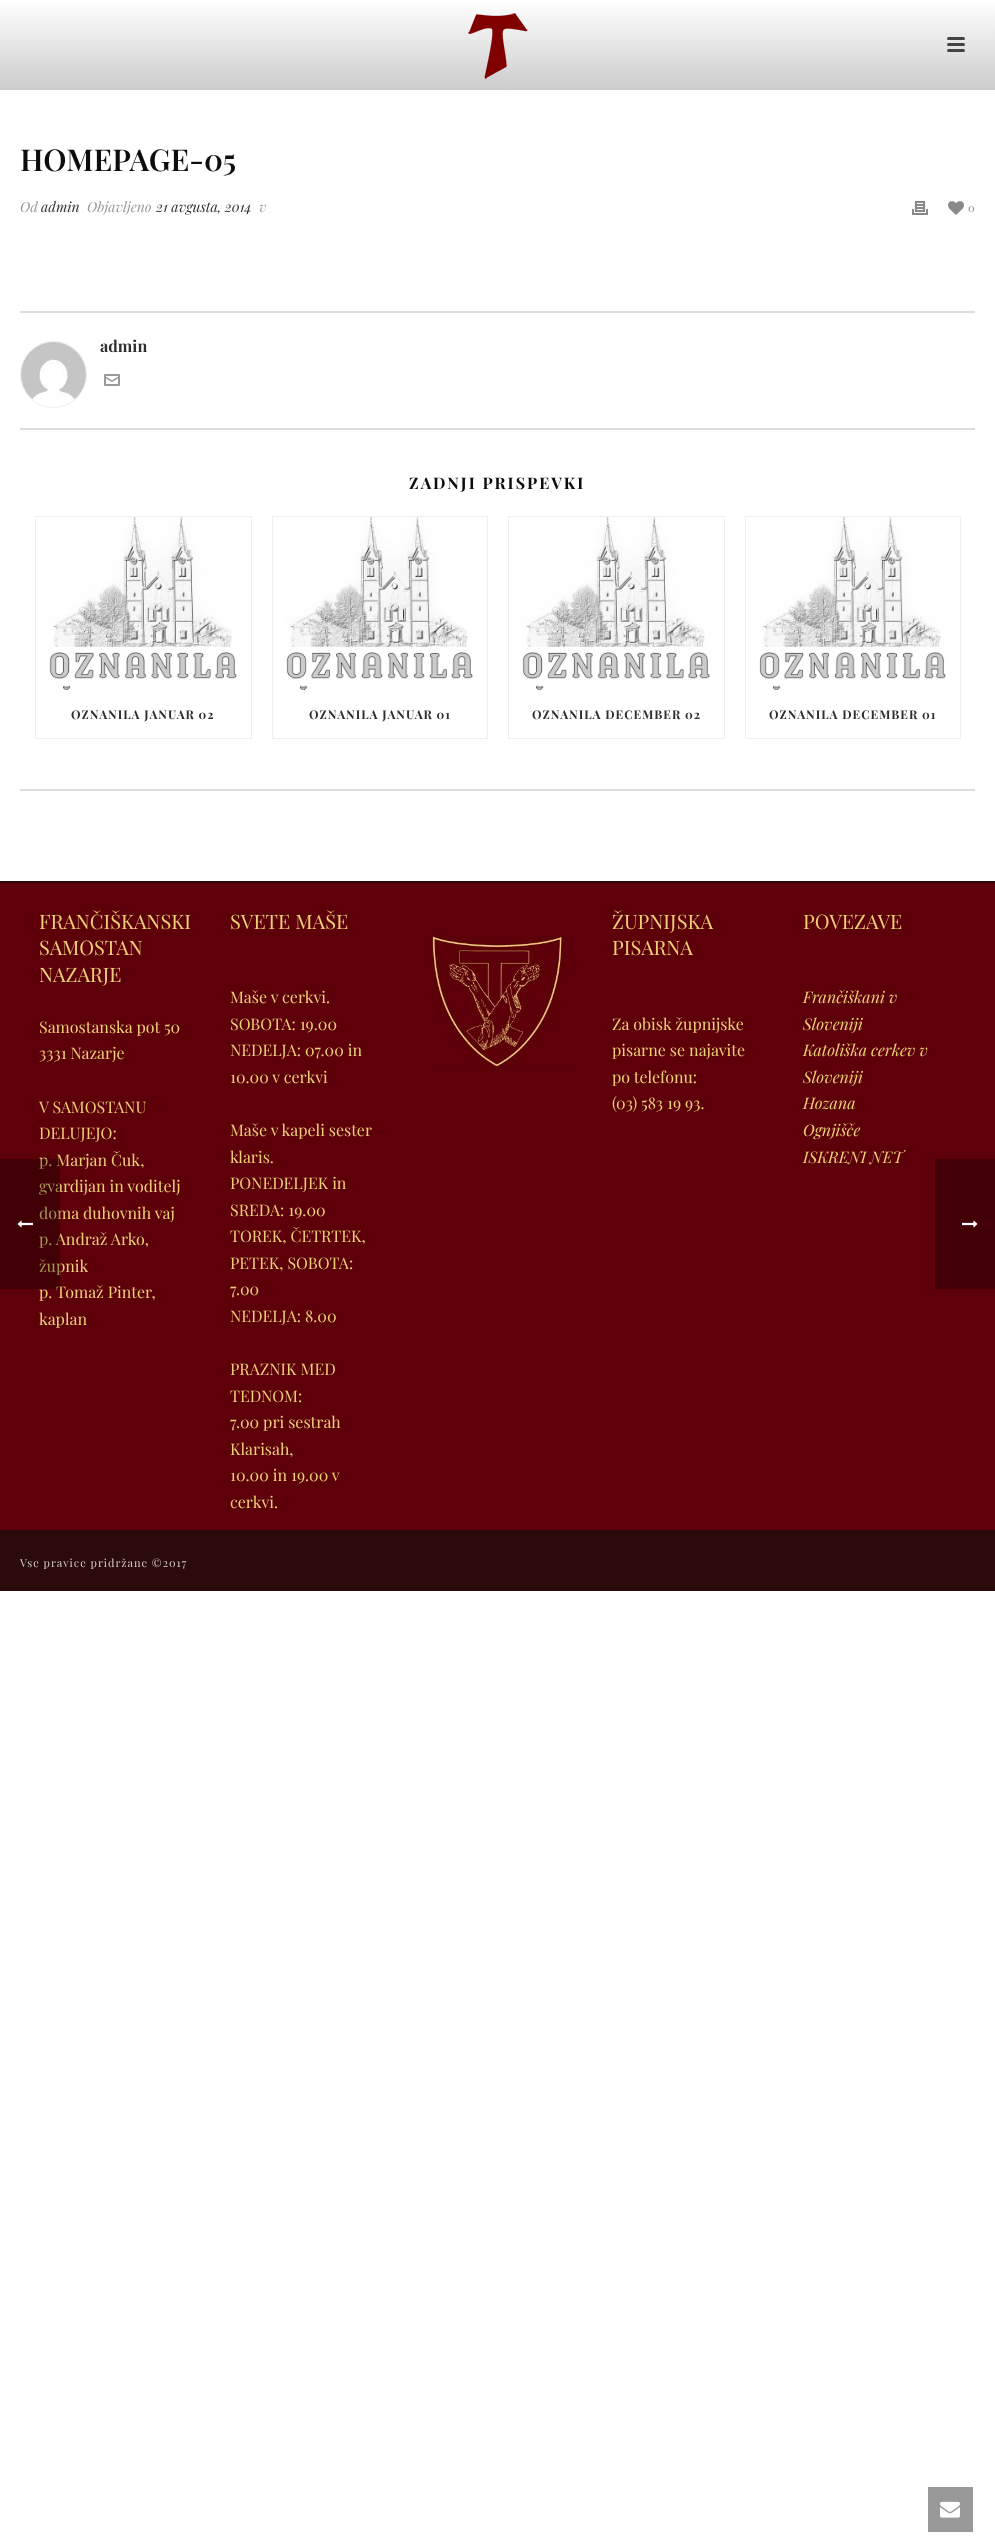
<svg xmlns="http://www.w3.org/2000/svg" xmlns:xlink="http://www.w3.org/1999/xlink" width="995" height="2547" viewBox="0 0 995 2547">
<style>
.cls-1{font:600 30px Playfair Display;fill:#0d0d0d}
.cls-2{font:italic 14px Playfair Display;fill:#999999}
.cls-3{font:italic 14px Playfair Display;fill:#2e2e2e}
.cls-4{font:11px Playfair Display;fill:#898989}
.cls-5{font:bold 16px Playfair Display;fill:#2e2e2e}
.cls-6{font:bold 16px Playfair Display;letter-spacing:2px;fill:#0d0d0d}
.cls-7{font:bold 12px Playfair Display;letter-spacing:1px;fill:#2e2e2e}
.cls-8{font:20px Playfair Display;fill:#ecd078}
.cls-9{font:16px Playfair Display;fill:#ecd078}
.cls-10{font:italic 16px Playfair Display;fill:#ecd078}
.cls-11{font:11px Playfair Display;letter-spacing:1px;fill:#d4cece}
</style>
<defs>
<linearGradient id="g1" gradientUnits="userSpaceOnUse" x1="498" y1="0" x2="498" y2="90"><stop offset="0" stop-color="#ffffff"/><stop offset="1" stop-color="#cccccc"/></linearGradient>
</defs>
<rect width="100%" height="100%" fill="#ffffff"/>
<rect fill="url(#g1)" x="0" y="4" width="995" height="86"/>
<image xlink:href="image0.png" x="468" y="13" width="60" height="66"/>
<rect fill="#444444" x="947" y="37" width="18" height="3" rx="1.5"/>
<rect fill="#444444" x="947" y="43" width="18" height="3" rx="1.5"/>
<rect fill="#444444" x="947" y="49" width="18" height="3" rx="1.5"/>
<image xlink:href="image1.png" x="912" y="201" width="16" height="14"/>
<image xlink:href="image2.png" x="948" y="201" width="16" height="14"/>
<rect fill="#dddddd" x="20" y="311" width="955" height="2"/>
<rect fill="#dddddd" x="20" y="428" width="955" height="2"/>
<circle fill="none" stroke="#eeeeee" cx="53.5" cy="374.5" r="33"/>
<image xlink:href="image3.png" x="21" y="342" width="65" height="57"/>
<image xlink:href="image4.png" x="104" y="374" width="16" height="12"/>
<rect fill="#dddddd" x="20" y="789" width="955" height="2"/>
<rect fill="none" stroke="#efefef" x="35.5" y="516.5" width="216" height="222"/>
<image xlink:href="image5.png" x="49" y="517" width="188" height="173"/>
<rect fill="none" stroke="#efefef" x="272.5" y="516.5" width="215" height="222"/>
<image xlink:href="image6.png" x="286" y="517" width="187" height="173"/>
<rect fill="none" stroke="#efefef" x="508.5" y="516.5" width="216" height="222"/>
<image xlink:href="image5.png" x="522" y="517" width="188" height="173"/>
<rect fill="none" stroke="#efefef" x="745.5" y="516.5" width="215" height="222"/>
<image xlink:href="image6.png" x="759" y="517" width="187" height="173"/>
<rect fill="#5e0009" x="0" y="883" width="995" height="647"/>
<rect fill="#2a0a0a" x="0" y="881" width="995" height="2"/>
<image xlink:href="image7.png" x="431" y="934" width="137" height="137"/>
<rect fill="#2a0a0a" x="0" y="1530" width="995" height="61"/>
<rect fill="#420006" x="935" y="1159" width="60" height="130"/>
<image xlink:href="image9.png" x="962" y="1220" width="16" height="8"/>
<rect fill="#999999" x="928" y="2487" width="45" height="45"/>
<image xlink:href="image10.png" x="940" y="2501" width="20" height="17"/>
<text class="cls-1" x="20" y="171">HOMEPAGE-05</text>
<text class="cls-2" x="20" y="212">Od</text>
<text class="cls-3" x="41" y="212">admin</text>
<text class="cls-2" x="87" y="212">Objavljeno</text>
<text class="cls-3" x="156" y="212">21 avgusta, 2014</text>
<text class="cls-2" x="259" y="212">v</text>
<text class="cls-4" x="968" y="212">0</text>
<text class="cls-5" x="100" y="352">admin</text>
<text class="cls-6" x="409" y="489">ZADNJI PRISPEVKI</text>
<text class="cls-7" x="71" y="719">OZNANILA JANUAR 02</text>
<text class="cls-7" x="309" y="719">OZNANILA JANUAR 01</text>
<text class="cls-7" x="532" y="719">OZNANILA DECEMBER 02</text>
<text class="cls-7" x="769" y="719">OZNANILA DECEMBER 01</text>
<text class="cls-8"><tspan x="39" y="929">FRANČIŠKANSKI</tspan><tspan x="39" y="955">SAMOSTAN</tspan><tspan x="39" y="982">NAZARJE</tspan></text>
<text class="cls-9"><tspan x="39" y="1033">Samostanska pot 50</tspan><tspan x="39" y="1059">3331 Nazarje</tspan></text>
<text class="cls-9"><tspan x="39" y="1113">V SAMOSTANU</tspan><tspan x="39" y="1139">DELUJEJO:</tspan><tspan x="39" y="1166">p. Marjan Čuk,</tspan><tspan x="39" y="1192">gvardijan in voditelj</tspan><tspan x="39" y="1219">doma duhovnih vaj</tspan><tspan x="39" y="1245">p. Andraž Arko,</tspan><tspan x="39" y="1272">župnik</tspan><tspan x="39" y="1298">p. Tomaž Pinter,</tspan><tspan x="39" y="1325">kaplan</tspan></text>
<text class="cls-8" x="230" y="929">SVETE MAŠE</text>
<text class="cls-9"><tspan x="230" y="1003">Maše v cerkvi.</tspan><tspan x="230" y="1030">SOBOTA: 19.00</tspan><tspan x="230" y="1056">NEDELJA: 07.00 in</tspan><tspan x="230" y="1083">10.00 v cerkvi</tspan></text>
<text class="cls-9"><tspan x="230" y="1136">Maše v kapeli sester</tspan><tspan x="230" y="1163">klaris.</tspan><tspan x="230" y="1189">PONEDELJEK in</tspan><tspan x="230" y="1216">SREDA: 19.00</tspan><tspan x="230" y="1242">TOREK, ČETRTEK,</tspan><tspan x="230" y="1269">PETEK, SOBOTA:</tspan><tspan x="230" y="1295">7.00</tspan><tspan x="230" y="1322">NEDELJA: 8.00</tspan></text>
<text class="cls-9"><tspan x="230" y="1375">PRAZNIK MED</tspan><tspan x="230" y="1402">TEDNOM:</tspan><tspan x="230" y="1428">7.00 pri sestrah</tspan><tspan x="230" y="1455">Klarisah,</tspan><tspan x="230" y="1481">10.00 in 19.00 v</tspan><tspan x="230" y="1508">cerkvi.</tspan></text>
<text class="cls-8"><tspan x="612" y="929">ŽUPNIJSKA</tspan><tspan x="612" y="955">PISARNA</tspan></text>
<text class="cls-9"><tspan x="612" y="1030">Za obisk župnijske</tspan><tspan x="612" y="1056">pisarne se najavite</tspan><tspan x="612" y="1083">po telefonu:</tspan><tspan x="612" y="1109">(03) 583 19 93.</tspan></text>
<text class="cls-8" x="803" y="929">POVEZAVE</text>
<text class="cls-10"><tspan x="803" y="1003">Frančiškani v</tspan><tspan x="803" y="1030">Sloveniji</tspan><tspan x="803" y="1056">Katoliška cerkev v</tspan><tspan x="803" y="1083">Sloveniji</tspan><tspan x="803" y="1109">Hozana</tspan><tspan x="803" y="1136">Ognjišče</tspan><tspan x="803" y="1163">ISKRENI NET</tspan></text>
<text class="cls-11" x="20" y="1567">Vse pravice pridržane ©2017</text>
<rect fill="#000000" fill-opacity="0.3" x="0" y="1159" width="60" height="130"/>
<image xlink:href="image8.png" x="17" y="1220" width="16" height="8"/>
</svg>
